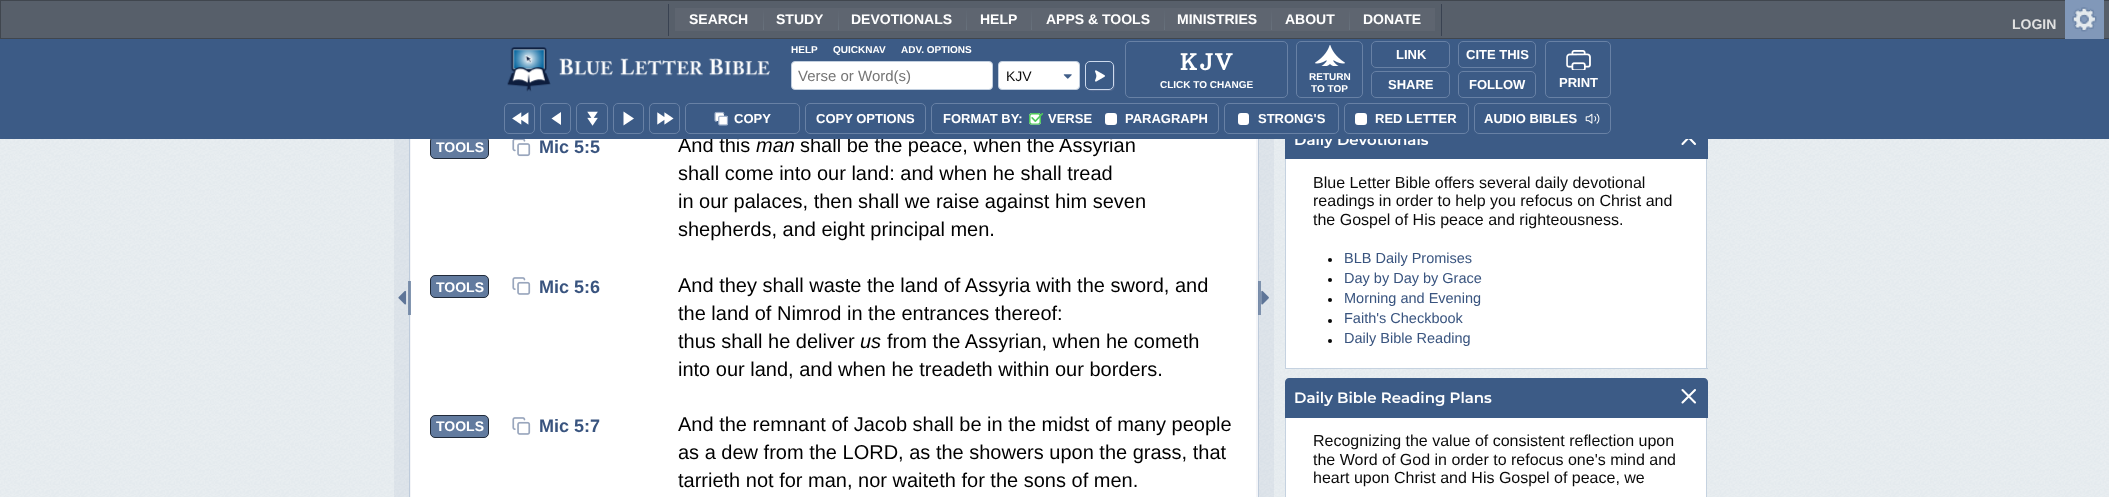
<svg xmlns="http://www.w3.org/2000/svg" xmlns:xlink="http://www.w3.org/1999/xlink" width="2109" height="497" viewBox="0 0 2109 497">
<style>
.cls-1{font:bold 14px Liberation Sans;fill:#ffffff}
.cls-2{font:bold 14px Liberation Sans;fill:#e1e1e1}
.cls-3{font:bold 18px Liberation Sans;fill:#39547f}
.cls-4{font:20px Liberation Sans;fill:#000000}
.cls-5{font:italic 20px Liberation Sans;fill:#000000}
.cls-6{font:600 15px Montserrat;fill:#ffffff}
.cls-7{font:bold 13px Liberation Sans;fill:#ffffff}
.cls-8{font:14px Liberation Sans;fill:#0a0a0a}
.cls-9{font:bold 10px Liberation Sans;fill:#ffffff}
.cls-10{font:bold 22px Arbutus Slab;letter-spacing:2.5px;fill:#ffffff}
.cls-11{font:15px Liberation Sans;fill:#757575}
.cls-12{font:16px Liberation Sans;fill:#0a0a0a}
.cls-13{font:14.5px Liberation Sans;fill:#39547f}
</style>
<defs>
<linearGradient id="g1" gradientUnits="userSpaceOnUse" x1="763" y1="9" x2="763" y2="30"><stop offset="0" stop-color="#5e6570"/><stop offset="1" stop-color="#68727d"/></linearGradient>
<linearGradient id="g2" gradientUnits="userSpaceOnUse" x1="838" y1="9" x2="838" y2="30"><stop offset="0" stop-color="#5e6570"/><stop offset="1" stop-color="#68727d"/></linearGradient>
<linearGradient id="g3" gradientUnits="userSpaceOnUse" x1="967" y1="9" x2="967" y2="30"><stop offset="0" stop-color="#5e6570"/><stop offset="1" stop-color="#68727d"/></linearGradient>
<linearGradient id="g4" gradientUnits="userSpaceOnUse" x1="1032" y1="9" x2="1032" y2="30"><stop offset="0" stop-color="#5e6570"/><stop offset="1" stop-color="#68727d"/></linearGradient>
<linearGradient id="g5" gradientUnits="userSpaceOnUse" x1="1164" y1="9" x2="1164" y2="30"><stop offset="0" stop-color="#5e6570"/><stop offset="1" stop-color="#68727d"/></linearGradient>
<linearGradient id="g6" gradientUnits="userSpaceOnUse" x1="1272" y1="9" x2="1272" y2="30"><stop offset="0" stop-color="#5e6570"/><stop offset="1" stop-color="#68727d"/></linearGradient>
<linearGradient id="g7" gradientUnits="userSpaceOnUse" x1="1349" y1="9" x2="1349" y2="30"><stop offset="0" stop-color="#5e6570"/><stop offset="1" stop-color="#68727d"/></linearGradient>
</defs>
<rect width="100%" height="100%" fill="#ffffff"/>
<image xlink:href="image0.png" x="0" y="139" width="2109" height="358"/>
<rect fill="#575f6a" stroke="#40464e" x="0.5" y="0.5" width="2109" height="38"/>
<rect fill="#394251" x="1441" y="4" width="1" height="32"/>
<rect fill="#394251" x="668" y="4" width="1" height="32"/>
<rect fill="#000000" fill-opacity="0.2" filter="blur(0.5px)" x="675" y="8" width="88" height="23"/>
<rect fill="#5e6570" x="675" y="8" width="291" height="23"/>
<rect fill="url(#g1)" x="763" y="9" width="1" height="21"/>
<rect fill="url(#g2)" x="838" y="9" width="1" height="21"/>
<rect fill="#000000" fill-opacity="0.2" filter="blur(0.5px)" x="966" y="8" width="65" height="23"/>
<rect fill="#5e6570" x="966" y="8" width="65" height="23"/>
<rect fill="url(#g3)" x="966" y="9" width="1" height="21"/>
<rect fill="#000000" fill-opacity="0.2" filter="blur(0.5px)" x="1031" y="8" width="133" height="23"/>
<rect fill="#5e6570" x="1031" y="8" width="240" height="23"/>
<rect fill="url(#g4)" x="1031" y="9" width="1" height="21"/>
<rect fill="url(#g5)" x="1164" y="9" width="1" height="21"/>
<rect fill="#000000" fill-opacity="0.2" filter="blur(0.5px)" x="1271" y="8" width="78" height="23"/>
<rect fill="#5e6570" x="1271" y="8" width="78" height="23"/>
<rect fill="url(#g6)" x="1271" y="9" width="1" height="21"/>
<rect fill="#000000" fill-opacity="0.2" filter="blur(0.5px)" x="1349" y="8" width="86" height="23"/>
<rect fill="#5e6570" x="1349" y="8" width="86" height="23"/>
<rect fill="url(#g7)" x="1349" y="9" width="1" height="21"/>
<rect fill="#8198b9" x="2065" y="0" width="39" height="39"/>
<image xlink:href="image1.png" x="2072" y="7" width="25" height="25"/>
<rect fill="#ffffff" x="410" y="139" width="848" height="358"/>
<rect fill="#c5d2e0" x="409" y="139" width="1" height="358"/>
<rect fill="#5e7598" fill-opacity="0.07" x="394" y="139" width="17" height="358"/>
<rect fill="#5e7598" fill-opacity="0.75" x="408" y="281" width="3" height="34"/>
<image xlink:href="image13.png" x="398" y="290" width="9" height="15"/>
<rect fill="#c5d2e0" x="1258" y="139" width="1" height="358"/>
<rect fill="#627b9f" stroke="#202a39" x="430.5" y="136.5" width="58" height="22" rx="4.5"/>
<image xlink:href="image14.png" x="512" y="139" width="19" height="18"/>
<rect fill="#627b9f" stroke="#202a39" x="430.5" y="275.5" width="58" height="22" rx="4.5"/>
<image xlink:href="image15.png" x="512" y="277" width="19" height="18"/>
<rect fill="#627b9f" stroke="#202a39" x="430.5" y="415.5" width="58" height="22" rx="4.5"/>
<image xlink:href="image15.png" x="512" y="417" width="19" height="18"/>
<rect fill="#5e7598" fill-opacity="0.07" x="1256" y="139" width="18" height="358"/>
<rect fill="#5e7598" fill-opacity="0.75" x="1258" y="281" width="3" height="34"/>
<image xlink:href="image16.png" x="1261" y="290" width="8" height="15"/>
<rect fill="#3c5b86" x="1285" y="139" width="423" height="20"/>
<path fill="none" stroke="#ffffff" stroke-width="2.1" stroke-linecap="round" stroke-linejoin="round" d="M1695 131L1682.5 144M1682.5 131L1695 144"/>
<rect fill="#ffffff" x="1286" y="159" width="420" height="209"/>
<rect fill="#c5d2e0" x="1706" y="159" width="1" height="210"/>
<rect fill="#c5d2e0" x="1285" y="368" width="423" height="1"/>
<rect fill="#c5d2e0" x="1285" y="159" width="1" height="210"/>
<circle fill="#0a0a0a" cx="1330" cy="260" r="2"/>
<circle fill="#0a0a0a" cx="1330" cy="280" r="2"/>
<circle fill="#0a0a0a" cx="1330" cy="300" r="2"/>
<circle fill="#0a0a0a" cx="1330" cy="321" r="2"/>
<circle fill="#0a0a0a" cx="1330" cy="341" r="2"/>
<path fill="#3c5b86" d="M1289 378H1704C1706 378 1708 380 1708 382V418H1285V382C1285 380 1287 378 1289 378Z"/>
<path fill="none" stroke="#ffffff" stroke-width="2.1" stroke-linecap="round" stroke-linejoin="round" d="M1695 390L1682.5 402.5M1682.5 390L1695 402.5"/>
<rect fill="#ffffff" x="1286" y="418" width="420" height="79"/>
<rect fill="#c5d2e0" x="1706" y="418" width="1" height="79"/>
<rect fill="#c5d2e0" x="1285" y="418" width="1" height="79"/>
<text class="cls-1" x="689" y="24">SEARCH</text>
<text class="cls-1" x="776" y="24">STUDY</text>
<text class="cls-1" x="851" y="24">DEVOTIONALS</text>
<text class="cls-1" x="980" y="24">HELP</text>
<text class="cls-1" x="1046" y="24">APPS &amp; TOOLS</text>
<text class="cls-1" x="1177" y="24">MINISTRIES</text>
<text class="cls-1" x="1285" y="24">ABOUT</text>
<text class="cls-1" x="1363" y="24">DONATE</text>
<text class="cls-2" x="2012" y="29">LOGIN</text>
<text class="cls-1" x="436" y="152">TOOLS</text>
<text class="cls-3" x="539" y="153">Mic 5:5</text>
<text class="cls-4" x="678" y="152">And this</text>
<text class="cls-5" x="756" y="152">man</text>
<text class="cls-4" x="800" y="152">shall be the peace, when the Assyrian</text>
<text class="cls-4"><tspan x="678" y="180">shall come into our land: and when he shall tread</tspan><tspan x="678" y="208">in our palaces, then shall we raise against him seven</tspan><tspan x="678" y="236">shepherds, and eight principal men.</tspan></text>
<text class="cls-1" x="436" y="292">TOOLS</text>
<text class="cls-3" x="539" y="293">Mic 5:6</text>
<text class="cls-4"><tspan x="678" y="292">And they shall waste the land of Assyria with the sword, and</tspan><tspan x="678" y="320">the land of Nimrod in the entrances thereof:</tspan><tspan x="678" y="348">thus shall he deliver</tspan></text>
<text class="cls-5" x="860" y="348">us</text>
<text class="cls-4" x="887" y="348">from the Assyrian, when he cometh</text>
<text class="cls-4" x="678" y="376">into our land, and when he treadeth within our borders.</text>
<text class="cls-1" x="436" y="431">TOOLS</text>
<text class="cls-3" x="539" y="432">Mic 5:7</text>
<text class="cls-4"><tspan x="678" y="431">And the remnant of Jacob shall be in the midst of many people</tspan><tspan x="678" y="459">as a dew from the LORD, as the showers upon the grass, that</tspan><tspan x="678" y="487">tarrieth not for man, nor waiteth for the sons of men.</tspan></text>
<text class="cls-6" x="1294" y="145">Daily Devotionals</text>
<rect fill="#3c5b86" x="0" y="39" width="2109" height="100"/>
<rect fill="none" stroke="#6881a5" x="1458.5" y="71.5" width="77" height="26" rx="4.5"/>
<text class="cls-7" x="1469" y="89">FOLLOW</text>
<rect fill="none" stroke="#6881a5" x="1458.5" y="41.5" width="77" height="26" rx="4.5"/>
<text class="cls-7" x="1466" y="59">CITE THIS</text>
<rect fill="none" stroke="#6881a5" x="1371.5" y="71.5" width="78" height="26" rx="4.5"/>
<text class="cls-7" x="1388" y="89">SHARE</text>
<rect fill="none" stroke="#6881a5" x="1371.5" y="41.5" width="78" height="26" rx="4.5"/>
<text class="cls-7" x="1396" y="59">LINK</text>
<rect fill="#ffffff" stroke="#c2cfdf" x="998.5" y="61.5" width="81" height="28" rx="3.5"/>
<image xlink:href="image3.png" x="1063" y="74" width="9" height="5"/>
<text class="cls-8" x="1006" y="81">KJV</text>
<rect fill="none" stroke="#6881a5" x="1545.5" y="41.5" width="65" height="56" rx="4.5"/>
<text class="cls-7" x="1559" y="87">PRINT</text>
<image xlink:href="image6.png" x="1566" y="50" width="25" height="20"/>
<rect fill="none" stroke="#6881a5" x="1296.5" y="41.5" width="66" height="56" rx="4.5"/>
<text class="cls-9" x="1311" y="92">TO TOP</text>
<text class="cls-9" x="1309" y="80">RETURN</text>
<image xlink:href="image5.png" x="1315" y="45" width="30" height="21"/>
<rect fill="none" stroke="#6881a5" x="1125.5" y="41.5" width="162" height="56" rx="4.5"/>
<text class="cls-9" x="1160" y="88">CLICK TO CHANGE</text>
<text class="cls-10" x="1180" y="70">KJV</text>
<path fill="#526991" d="M1087 89C1089.5 92 1094 91 1097.5 91C1116.5 91 1115 93.5 1115 74C1115 71 1116 66.5 1113.5 64.5L1114 66V85C1114 88 1111.5 90 1109 90H1090C1089 90 1088 89.5 1087 89Z"/>
<rect fill="none" stroke="#cddaed" x="1085.5" y="61.5" width="28" height="28" rx="4.5"/>
<image xlink:href="image4.png" x="1095" y="70" width="10" height="12"/>
<rect fill="#ffffff" stroke="#c2cfdf" x="791.5" y="61.5" width="201" height="28" rx="3.5"/>
<text class="cls-11" x="798" y="81">Verse or Word(s)</text>
<text class="cls-9" x="901" y="53">ADV. OPTIONS</text>
<text class="cls-9" x="833" y="53">QUICKNAV</text>
<text class="cls-9" x="791" y="53">HELP</text>
<image xlink:href="image2.png" x="507" y="47" width="263" height="45"/>
<rect fill="none" stroke="#6881a5" x="1474.5" y="103.5" width="136" height="30" rx="4.5"/>
<image xlink:href="image12.png" x="1585" y="113" width="15" height="11"/>
<rect fill="none" stroke="#6881a5" x="1344.5" y="103.5" width="124" height="30" rx="4.5"/>
<rect fill="#ffffff" x="1355" y="113" width="12" height="12" rx="3"/>
<rect fill="none" stroke="#6881a5" x="1224.5" y="103.5" width="114" height="30" rx="4.5"/>
<rect fill="#ffffff" x="1238" y="113" width="11" height="12" rx="3"/>
<rect fill="none" stroke="#6881a5" x="931.5" y="103.5" width="287" height="30" rx="4.5"/>
<rect fill="#ffffff" x="1105" y="113" width="12" height="12" rx="3"/>
<image xlink:href="image11.png" x="1029" y="113" width="15" height="12"/>
<rect fill="none" stroke="#6881a5" x="685.5" y="103.5" width="114" height="30" rx="4.5"/>
<image xlink:href="image10.png" x="714" y="111" width="15" height="15"/>
<rect fill="none" stroke="#6881a5" x="649.5" y="103.5" width="30" height="30" rx="4.5"/>
<image xlink:href="image9.png" x="657" y="112" width="17" height="13"/>
<rect fill="none" stroke="#6881a5" x="613.5" y="103.5" width="30" height="30" rx="4.5"/>
<path fill="#ffffff" d="M634 118.5L623.5 125.5V111.5Z"/>
<rect fill="none" stroke="#6881a5" x="576.5" y="103.5" width="31" height="30" rx="4.5"/>
<image xlink:href="image8.png" x="587" y="111" width="11" height="15"/>
<rect fill="none" stroke="#6881a5" x="540.5" y="103.5" width="30" height="30" rx="4.5"/>
<path fill="#ffffff" d="M551.5 118.5L561 112V125Z"/>
<rect fill="none" stroke="#6881a5" x="504.5" y="103.5" width="30" height="30" rx="4.5"/>
<image xlink:href="image7.png" x="512" y="112" width="17" height="13"/>
<text class="cls-7" x="1484" y="123">AUDIO BIBLES</text>
<text class="cls-7" x="1375" y="123">RED LETTER</text>
<text class="cls-7" x="1258" y="123">STRONG'S</text>
<text class="cls-7" x="1125" y="123">PARAGRAPH</text>
<text class="cls-7" x="1048" y="123">VERSE</text>
<text class="cls-7" x="943" y="123">FORMAT BY:</text>
<rect fill="none" stroke="#6881a5" x="805.5" y="103.5" width="120" height="30" rx="4.5"/>
<text class="cls-7" x="816" y="123">COPY OPTIONS</text>
<text class="cls-7" x="734" y="123">COPY</text>
<text class="cls-12"><tspan x="1313" y="188">Blue Letter Bible offers several daily devotional</tspan><tspan x="1313" y="206">readings in order to help you refocus on Christ and</tspan><tspan x="1313" y="225">the Gospel of His peace and righteousness.</tspan></text>
<text class="cls-13"><tspan x="1344" y="263">BLB Daily Promises</tspan><tspan x="1344" y="283">Day by Day by Grace</tspan><tspan x="1344" y="303">Morning and Evening</tspan><tspan x="1344" y="323">Faith's Checkbook</tspan><tspan x="1344" y="343">Daily Bible Reading</tspan></text>
<text class="cls-6" x="1294" y="403">Daily Bible Reading Plans</text>
<text class="cls-12"><tspan x="1313" y="446">Recognizing the value of consistent reflection upon</tspan><tspan x="1313" y="465">the Word of God in order to refocus one's mind and</tspan><tspan x="1313" y="483">heart upon Christ and His Gospel of peace, we</tspan></text>
</svg>
